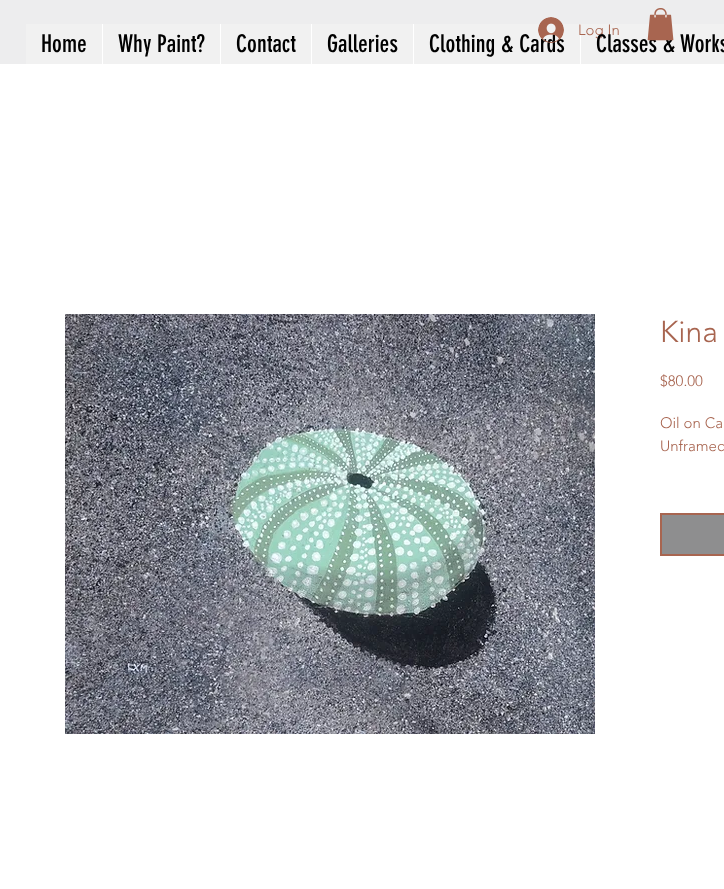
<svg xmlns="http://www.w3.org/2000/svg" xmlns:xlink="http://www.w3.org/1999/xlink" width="724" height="889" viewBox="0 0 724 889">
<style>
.cls-1{font:300 15px 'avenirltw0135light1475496';fill:#a86550}
.cls-2{font:24px 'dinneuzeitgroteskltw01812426';fill:#000000}
.cls-3{font:300 30px 'avenirltw0135light1475496';fill:#a86550}
</style>
<rect width="100%" height="100%" fill="#ffffff"/>
<rect fill="#ededee" x="0" y="0" width="724" height="64"/>
<rect fill="#f1f1f1" x="26" y="24" width="698" height="40"/>
<rect fill="#ffffff" x="102" y="24" width="1" height="40"/>
<rect fill="#ffffff" x="220" y="24" width="1" height="40"/>
<rect fill="#ffffff" x="311" y="24" width="1" height="40"/>
<rect fill="#ffffff" x="413" y="24" width="1" height="40"/>
<rect fill="#ffffff" x="580" y="24" width="1" height="40"/>
<image xlink:href="image2.png" x="65" y="314" width="530" height="420"/>
<rect fill="#8e8e8f" stroke="#a86550" stroke-width="2" x="661" y="514" width="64" height="41"/>
<text class="cls-1" x="578" y="35">Log In</text>
<text class="cls-2" x="41" y="52">Home</text>
<text class="cls-2" x="118" y="52">Why Paint?</text>
<text class="cls-2" x="236" y="52">Contact</text>
<text class="cls-2" x="327" y="52">Galleries</text>
<text class="cls-2" x="429" y="52">Clothing &amp; Cards</text>
<image xlink:href="image0.png" x="538" y="17" width="26" height="26"/>
<text class="cls-2" x="596" y="52">Classes &amp; Works</text>
<image xlink:href="image1.png" x="647" y="8" width="27" height="33"/>
<text class="cls-3" x="660" y="342">Kina</text>
<text class="cls-1" x="660" y="386">$80.00</text>
<text class="cls-1"><tspan x="660" y="428">Oil on Ca</tspan><tspan x="660" y="451">Unframed</tspan></text>
</svg>
